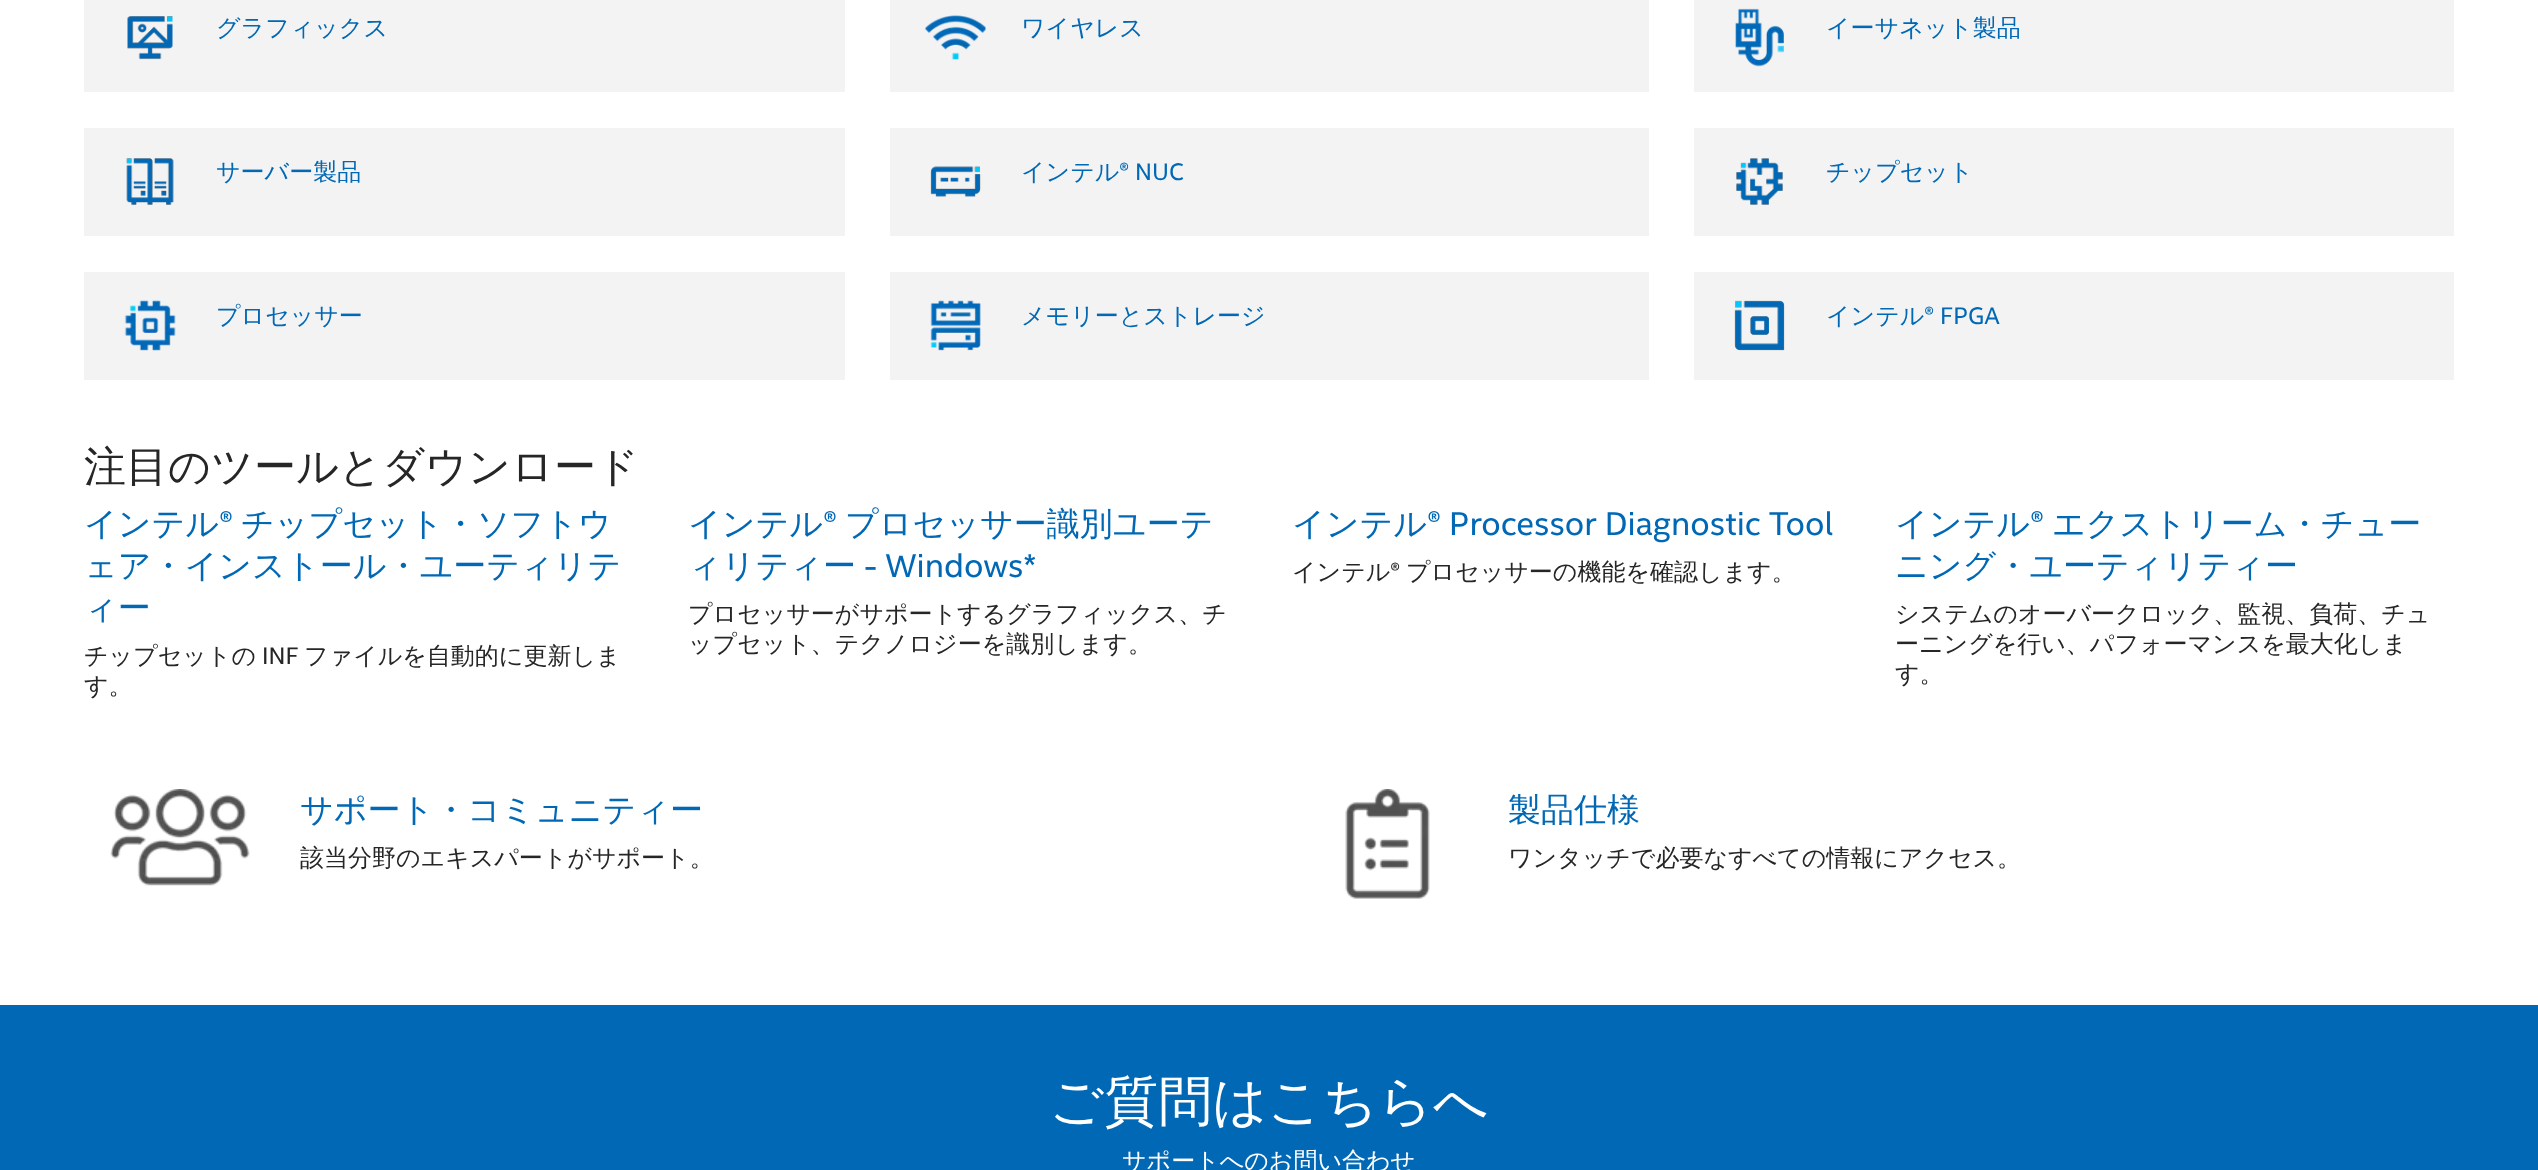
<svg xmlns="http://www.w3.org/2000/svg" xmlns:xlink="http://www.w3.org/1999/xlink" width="2538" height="1170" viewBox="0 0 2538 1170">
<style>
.cls-1{font:500 24px WenQuanYi Zen Hei;fill:#0068b5}
.cls-2{font:24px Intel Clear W;fill:#0068b5}
.cls-3{font:500 42px WenQuanYi Zen Hei;fill:#262626}
.cls-4{font:500 33px WenQuanYi Zen Hei;fill:#0068b5}
.cls-5{font:33px Intel Clear W;fill:#0068b5}
.cls-6{font:500 24px WenQuanYi Zen Hei;fill:#262626}
.cls-7{font:24px Intel Clear W;fill:#262626}
.cls-8{font:500 54px WenQuanYi Zen Hei;fill:#ffffff}
.cls-9{font:500 24px WenQuanYi Zen Hei;fill:#ffffff}
</style>
<rect width="100%" height="100%" fill="#ffffff"/>
<rect fill="#f3f3f3" x="84" y="0" width="761" height="92"/>
<image xlink:href="image0.png" x="127" y="16" width="46" height="44"/>
<rect fill="#f3f3f3" x="890" y="0" width="759" height="92"/>
<image xlink:href="image1.png" x="925" y="15" width="61" height="45"/>
<rect fill="#f3f3f3" x="1694" y="0" width="760" height="92"/>
<image xlink:href="image2.png" x="1735" y="8" width="49" height="59"/>
<rect fill="#f3f3f3" x="84" y="128" width="761" height="108"/>
<image xlink:href="image3.png" x="126" y="158" width="48" height="47"/>
<rect fill="#f3f3f3" x="890" y="128" width="759" height="108"/>
<image xlink:href="image4.png" x="930" y="166" width="51" height="31"/>
<rect fill="#f3f3f3" x="1694" y="128" width="760" height="108"/>
<image xlink:href="image5.png" x="1736" y="158" width="47" height="47"/>
<rect fill="#f3f3f3" x="84" y="272" width="761" height="108"/>
<image xlink:href="image6.png" x="124" y="300" width="52" height="51"/>
<rect fill="#f3f3f3" x="890" y="272" width="759" height="108"/>
<image xlink:href="image7.png" x="930" y="300" width="51" height="51"/>
<rect fill="#f3f3f3" x="1694" y="272" width="760" height="108"/>
<image xlink:href="image8.png" x="1734" y="300" width="51" height="51"/>
<image xlink:href="image9.png" x="110" y="789" width="140" height="97"/>
<image xlink:href="image10.png" x="1345" y="789" width="85" height="110"/>
<rect fill="#0068b5" x="0" y="1005" width="2538" height="165"/>
<text class="cls-1" x="216" y="36">グラフィックス</text>
<text class="cls-1" x="1021" y="36">ワイヤレス</text>
<text class="cls-1" x="1826" y="36">イーサネット製品</text>
<text class="cls-1" x="216" y="180">サーバー製品</text>
<text class="cls-1" x="1021" y="180">インテル</text>
<text class="cls-2" x="1119" y="180">® NUC</text>
<text class="cls-1" x="1826" y="180">チップセット</text>
<text class="cls-1" x="216" y="324">プロセッサー</text>
<text class="cls-1" x="1021" y="324">メモリーとストレージ</text>
<text class="cls-1" x="1826" y="324">インテル</text>
<text class="cls-2" x="1924" y="324">® FPGA</text>
<text class="cls-3" x="84" y="481">注目のツールとダウンロード</text>
<text class="cls-4" x="84" y="535">インテル</text>
<text class="cls-5" x="219" y="535">®</text>
<text class="cls-4" x="241" y="535">チップセット・ソフトウ</text>
<text class="cls-4"><tspan x="84" y="577">ェア・インストール・ユーティリテ</tspan><tspan x="84" y="619">ィー</tspan></text>
<text class="cls-6" x="84" y="664">チップセットの</text>
<text class="cls-7" x="262" y="664">INF</text>
<text class="cls-6" x="304" y="664">ファイルを自動的に更新しま</text>
<text class="cls-6" x="84" y="694">す。</text>
<text class="cls-4" x="688" y="535">インテル</text>
<text class="cls-5" x="823" y="535">®</text>
<text class="cls-4" x="845" y="535">プロセッサー識別ユーテ</text>
<text class="cls-4" x="688" y="577">ィリティー</text>
<text class="cls-5" x="864" y="577">- Windows*</text>
<text class="cls-6"><tspan x="688" y="622">プロセッサーがサポートするグラフィックス、チ</tspan><tspan x="688" y="652">ップセット、テクノロジーを識別します。</tspan></text>
<text class="cls-4" x="1292" y="535">インテル</text>
<text class="cls-5" x="1427" y="535">® Processor Diagnostic Tool</text>
<text class="cls-6" x="1292" y="580">インテル</text>
<text class="cls-7" x="1390" y="580">®</text>
<text class="cls-6" x="1406" y="580">プロセッサーの機能を確認します。</text>
<text class="cls-4" x="1895" y="535">インテル</text>
<text class="cls-5" x="2030" y="535">®</text>
<text class="cls-4" x="2052" y="535">エクストリーム・チュー</text>
<text class="cls-4" x="1895" y="577">ニング・ユーティリティー</text>
<text class="cls-6"><tspan x="1895" y="622">システムのオーバークロック、監視、負荷、チュ</tspan><tspan x="1895" y="652">ーニングを行い、パフォーマンスを最大化しま</tspan><tspan x="1895" y="682">す。</tspan></text>
<text class="cls-4" x="300" y="821">サポート・コミュニティー</text>
<text class="cls-6" x="300" y="866">該当分野のエキスパートがサポート。</text>
<text class="cls-4" x="1508" y="821">製品仕様</text>
<text class="cls-6" x="1508" y="866">ワンタッチで必要なすべての情報にアクセス。</text>
<text class="cls-8" x="1049" y="1120">ご質問はこちらへ</text>
<text class="cls-9" x="1122" y="1169">サポートへのお問い合わせ</text>
</svg>
